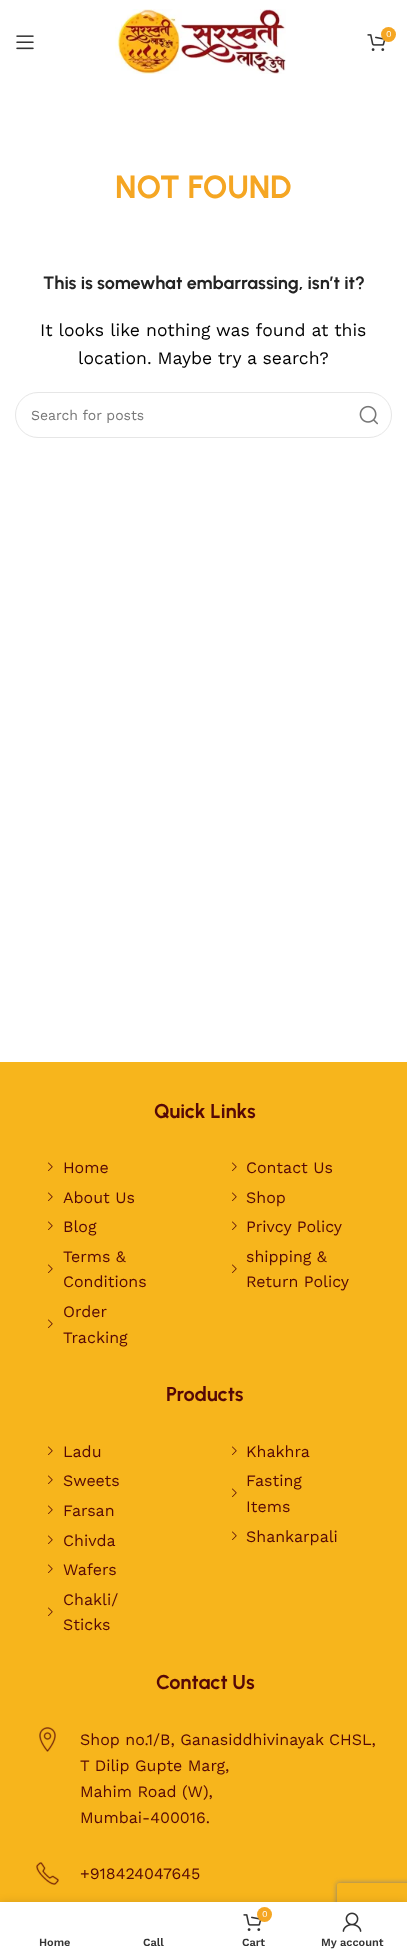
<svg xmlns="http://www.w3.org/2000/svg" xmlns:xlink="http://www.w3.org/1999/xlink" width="407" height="1957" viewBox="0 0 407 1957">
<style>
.cls-1{font:9px Work Sans;fill:#ffffff}
.cls-2{font:bold 32px Urbanist;fill:#f5a623}
.cls-3{font:bold 18px Urbanist;fill:#242424}
.cls-4{font:17.6px Work Sans;fill:#000000}
.cls-5{font:14px Work Sans;fill:#777777}
.cls-6{font:bold 20px Urbanist;fill:#550807}
.cls-7{font:16px Work Sans;fill:#550807}
.cls-8{font:600 11px Work Sans;fill:#333333}
</style>
<defs>
<clipPath id="clip1"><path d="M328 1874H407V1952H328ZM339 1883H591C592 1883 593 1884 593 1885V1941C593 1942 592 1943 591 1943H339C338 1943 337 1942 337 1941V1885C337 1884 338 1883 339 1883Z" clip-rule="evenodd"/></clipPath>
</defs>
<rect width="100%" height="100%" fill="#ffffff"/>
<image xlink:href="image0.png" x="16" y="35" width="18" height="15"/>
<image xlink:href="image1.png" x="115" y="9" width="171" height="65"/>
<image xlink:href="image2.png" x="367" y="34" width="19" height="17"/>
<circle fill="#f5a623" cx="388.5" cy="34.5" r="7.5"/>
<rect fill="none" stroke="#e6e6e6" x="15.5" y="392.5" width="376" height="45" rx="22.5"/>
<image xlink:href="image3.png" x="359" y="405" width="19" height="20"/>
<rect fill="#f7b51c" x="0" y="1062" width="407" height="840"/>
<image xlink:href="image4.png" x="48" y="1162" width="5" height="9"/>
<image xlink:href="image4.png" x="48" y="1192" width="5" height="9"/>
<image xlink:href="image4.png" x="48" y="1221" width="5" height="9"/>
<image xlink:href="image4.png" x="48" y="1264" width="5" height="9"/>
<image xlink:href="image4.png" x="48" y="1319" width="5" height="9"/>
<image xlink:href="image4.png" x="232" y="1162" width="5" height="9"/>
<image xlink:href="image4.png" x="232" y="1192" width="5" height="9"/>
<image xlink:href="image4.png" x="232" y="1221" width="5" height="9"/>
<image xlink:href="image4.png" x="232" y="1264" width="5" height="9"/>
<image xlink:href="image4.png" x="48" y="1446" width="5" height="9"/>
<image xlink:href="image4.png" x="48" y="1475" width="5" height="9"/>
<image xlink:href="image4.png" x="48" y="1505" width="5" height="9"/>
<image xlink:href="image4.png" x="48" y="1535" width="5" height="9"/>
<image xlink:href="image4.png" x="48" y="1564" width="5" height="9"/>
<image xlink:href="image4.png" x="48" y="1607" width="5" height="9"/>
<image xlink:href="image4.png" x="232" y="1446" width="5" height="9"/>
<image xlink:href="image4.png" x="232" y="1488" width="5" height="9"/>
<image xlink:href="image4.png" x="232" y="1531" width="5" height="9"/>
<image xlink:href="image5.png" x="39" y="1727" width="17" height="25"/>
<image xlink:href="image6.png" x="36" y="1862" width="23" height="23"/>
<g clip-path="url(#clip1)">
<rect fill="#808080" filter="blur(2.5px)" x="337" y="1883" width="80" height="60" rx="2"/>
</g>
<rect fill="#000000" fill-opacity="0.12" filter="blur(4.5px)" x="0" y="1902" width="407" height="55"/>
<rect fill="#ffffff" x="0" y="1902" width="407" height="55"/>
<image xlink:href="image2.png" x="243" y="1914" width="19" height="17"/>
<circle fill="#f5a623" cx="264.5" cy="1914.5" r="7.5"/>
<image xlink:href="image7.png" x="342" y="1912" width="20" height="20"/>
<text class="cls-1" x="386" y="37">0</text>
<text class="cls-2" x="115" y="198">NOT FOUND</text>
<text class="cls-3" x="43" y="289">This is somewhat embarrassing, isn’t it?</text>
<text class="cls-4" x="40" y="336">It looks like nothing was found at this</text>
<text class="cls-4" x="78" y="364">location. Maybe try a search?</text>
<text class="cls-5" x="31" y="420">Search for posts</text>
<text class="cls-6" x="154" y="1118">Quick Links</text>
<text class="cls-7"><tspan x="63" y="1173">Home</tspan><tspan x="63" y="1203">About Us</tspan><tspan x="63" y="1232">Blog</tspan><tspan x="63" y="1262">Terms &amp;</tspan><tspan x="63" y="1287">Conditions</tspan><tspan x="63" y="1317">Order</tspan><tspan x="63" y="1343">Tracking</tspan></text>
<text class="cls-7"><tspan x="246" y="1173">Contact Us</tspan><tspan x="246" y="1203">Shop</tspan><tspan x="246" y="1232">Privcy Policy</tspan><tspan x="246" y="1262">shipping &amp;</tspan><tspan x="246" y="1287">Return Policy</tspan></text>
<text class="cls-6" x="166" y="1401">Products</text>
<text class="cls-7"><tspan x="63" y="1457">Ladu</tspan><tspan x="63" y="1486">Sweets</tspan><tspan x="63" y="1516">Farsan</tspan><tspan x="63" y="1546">Chivda</tspan><tspan x="63" y="1575">Wafers</tspan><tspan x="63" y="1605">Chakli/</tspan><tspan x="63" y="1630">Sticks</tspan></text>
<text class="cls-7"><tspan x="246" y="1457">Khakhra</tspan><tspan x="246" y="1486">Fasting</tspan><tspan x="246" y="1512">Items</tspan><tspan x="246" y="1542">Shankarpali</tspan></text>
<text class="cls-6" x="156" y="1689">Contact Us</text>
<text class="cls-7"><tspan x="80" y="1745">Shop no.1/B, Ganasiddhivinayak CHSL,</tspan><tspan x="80" y="1771">T Dilip Gupte Marg,</tspan><tspan x="80" y="1797">Mahim Road (W),</tspan><tspan x="80" y="1823">Mumbai-400016.</tspan></text>
<text class="cls-7" x="80" y="1879">+918424047645</text>
<text class="cls-8" x="39" y="1946">Home</text>
<text class="cls-8" x="143" y="1946">Call</text>
<text class="cls-1" x="262" y="1917">0</text>
<text class="cls-8" x="242" y="1946">Cart</text>
<text class="cls-8" x="321" y="1946">My account</text>
</svg>
